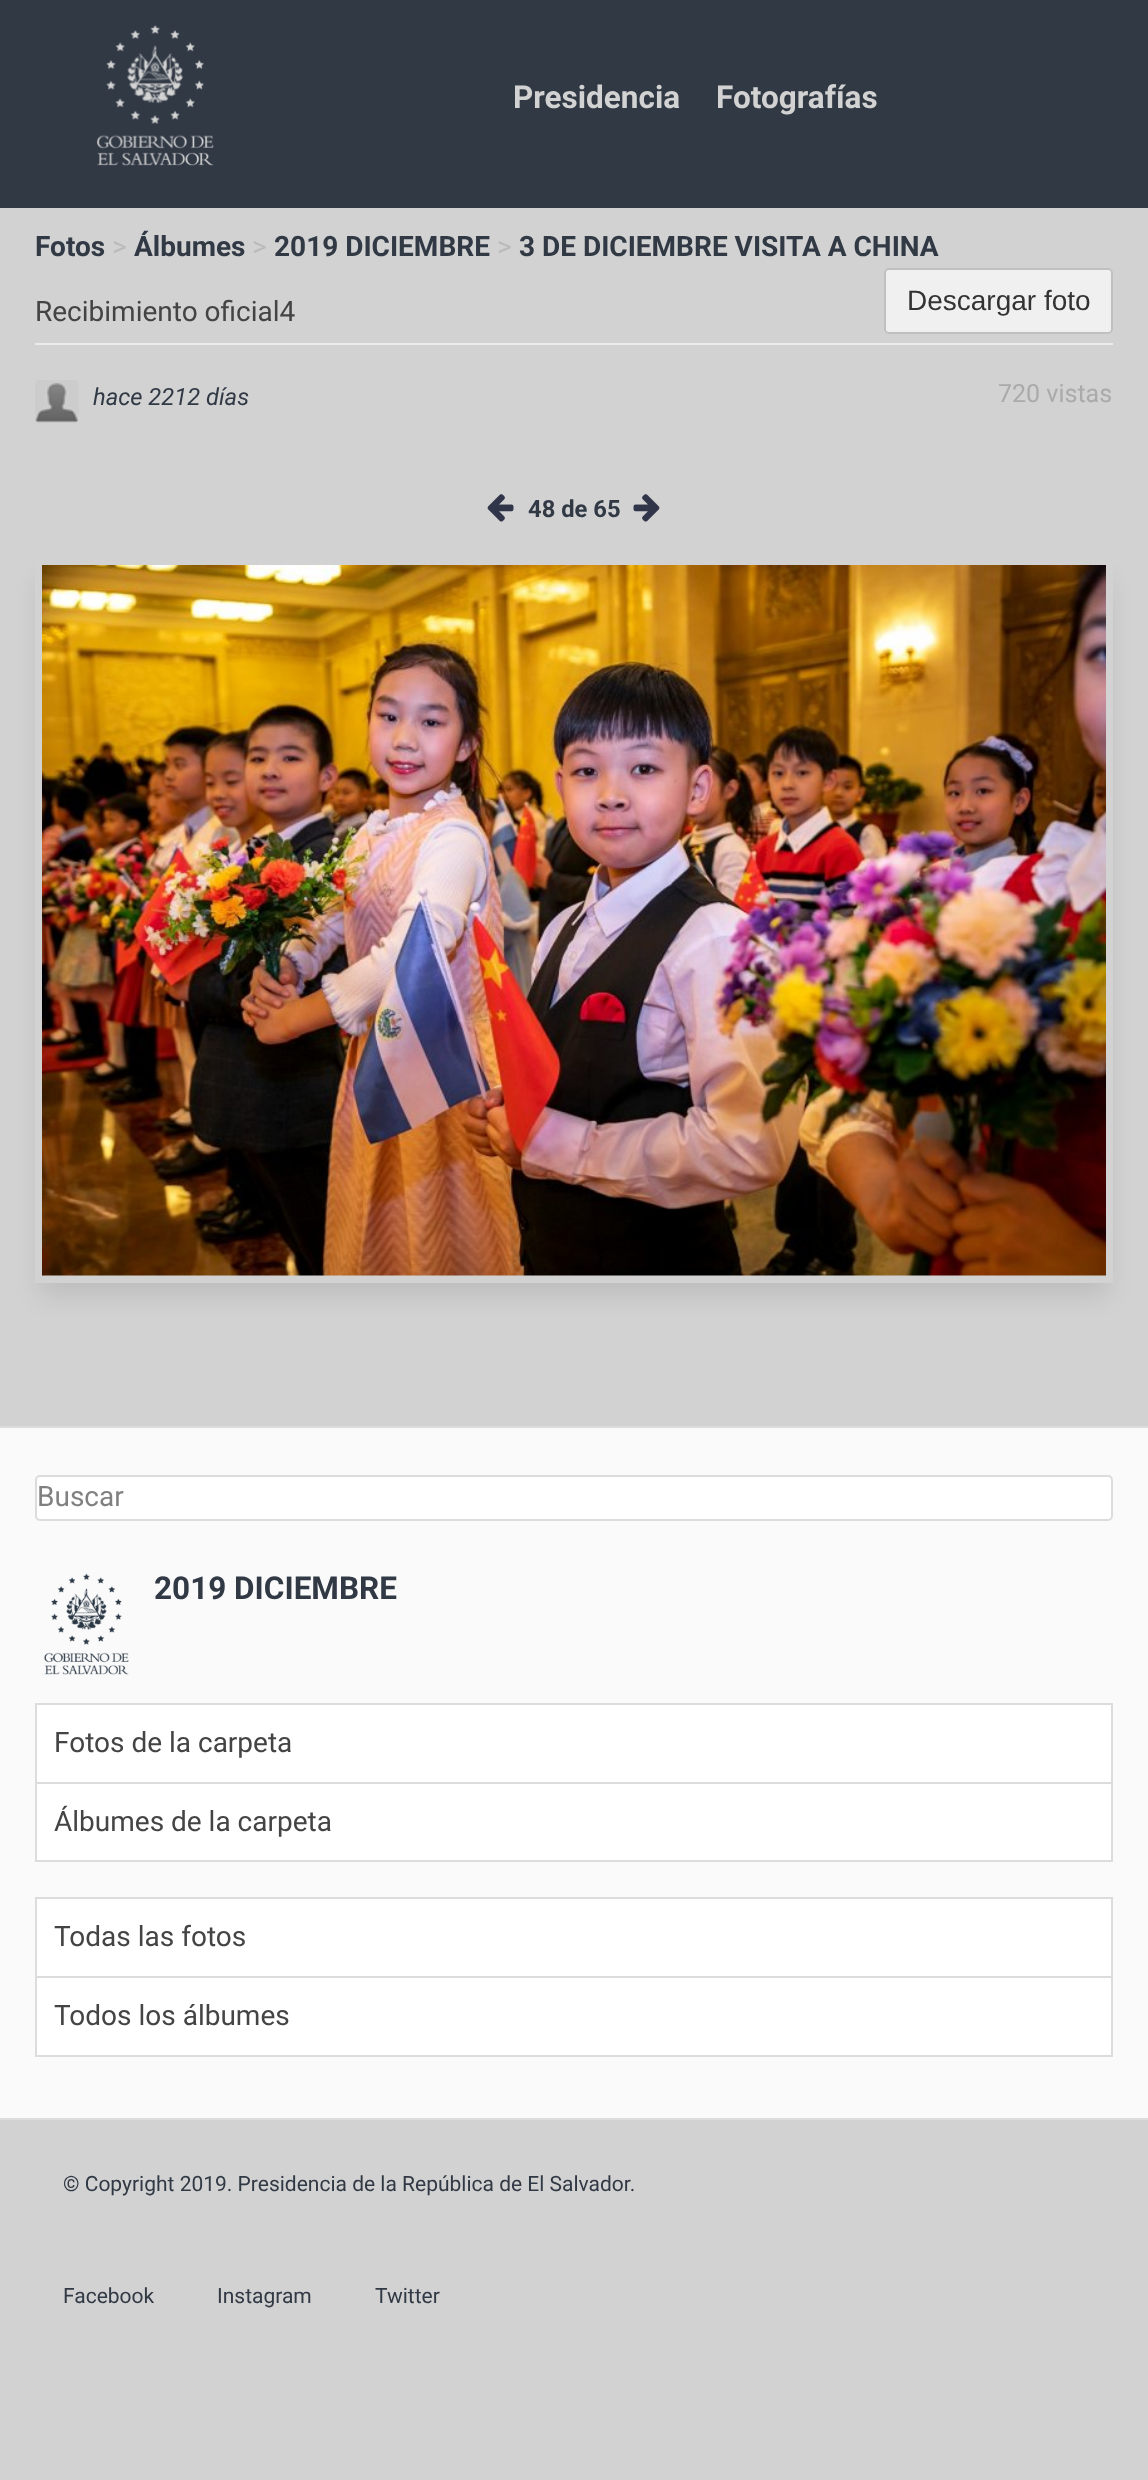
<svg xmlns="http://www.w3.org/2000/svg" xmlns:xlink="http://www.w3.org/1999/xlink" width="1148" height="2480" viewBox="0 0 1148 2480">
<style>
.cls-1{font:bold 31.5px Roboto;fill:#d2d2d2}
.cls-2{font:bold 28px Roboto;fill:#313945}
.cls-3{font:28px Roboto;fill:#bababa}
.cls-4{font:28px Roboto;fill:#444444}
.cls-5{font:28px Liberation Sans;fill:#333333}
.cls-6{font:italic 23.75px Roboto;fill:#313945}
.cls-7{font:25px Roboto;fill:#aaaaaa}
.cls-8{font:bold 23.75px Roboto;fill:#313945}
.cls-9{font:28px Roboto;fill:#808080}
.cls-10{font:bold 31.5px Roboto;fill:#313945}
.cls-11{font:21px Roboto;fill:#313945}
</style>
<defs>
<clipPath id="clip1"><path d="M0 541H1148V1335H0ZM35 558H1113V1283H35Z" clip-rule="evenodd"/></clipPath>
</defs>
<rect width="100%" height="100%" fill="#d2d2d2"/>
<rect fill="#313945" x="0" y="0" width="1148" height="208"/>
<image xlink:href="image0.png" x="97" y="25" width="117" height="141"/>
<rect fill="#ebebeb" x="35" y="343" width="1078" height="2"/>
<rect fill="#f0f0f0" x="884" y="268" width="229" height="66" rx="5"/>
<rect fill="none" stroke="#000000" stroke-opacity="0.2" stroke-width="2" x="885" y="269" width="227" height="64" rx="4"/>
<image xlink:href="image1.png" x="35" y="380" width="44" height="43"/>
<image xlink:href="image2.png" x="487" y="494" width="27" height="28"/>
<image xlink:href="image3.png" x="633" y="494" width="27" height="28"/>
<g clip-path="url(#clip1)">
<rect fill="#000000" fill-opacity="0.1" filter="blur(13px)" x="40" y="581" width="1068" height="714"/>
</g>
<image xlink:href="image4.png" x="42" y="565" width="1064" height="711"/>
<rect fill="#fafafa" x="0" y="1428" width="1148" height="690"/>
<rect fill="#dcdcdc" x="0" y="1426" width="1148" height="2"/>
<rect fill="#dcdcdc" x="0" y="2118" width="1148" height="2"/>
<rect fill="#ffffff" stroke="#dcdcdc" stroke-width="2" x="36" y="1476" width="1076" height="44" rx="4"/>
<image xlink:href="image5.png" x="44" y="1573" width="85" height="102"/>
<rect fill="#dcdcdc" x="35" y="1860" width="1078" height="2"/>
<rect fill="#ffffff" x="37" y="1705" width="1074" height="77"/>
<rect fill="#dcdcdc" x="35" y="1703" width="1078" height="2"/>
<rect fill="#dcdcdc" x="1111" y="1703" width="2" height="79"/>
<rect fill="#dcdcdc" x="35" y="1703" width="2" height="79"/>
<rect fill="#ffffff" x="37" y="1784" width="1074" height="76"/>
<rect fill="#dcdcdc" x="35" y="1782" width="1078" height="2"/>
<rect fill="#dcdcdc" x="1111" y="1782" width="2" height="78"/>
<rect fill="#dcdcdc" x="35" y="1782" width="2" height="78"/>
<rect fill="#dcdcdc" x="35" y="2055" width="1078" height="2"/>
<rect fill="#ffffff" x="37" y="1899" width="1074" height="77"/>
<rect fill="#dcdcdc" x="35" y="1897" width="1078" height="2"/>
<rect fill="#dcdcdc" x="1111" y="1897" width="2" height="79"/>
<rect fill="#dcdcdc" x="35" y="1897" width="2" height="79"/>
<rect fill="#ffffff" x="37" y="1978" width="1074" height="77"/>
<rect fill="#dcdcdc" x="35" y="1976" width="1078" height="2"/>
<rect fill="#dcdcdc" x="1111" y="1976" width="2" height="79"/>
<rect fill="#dcdcdc" x="35" y="1976" width="2" height="79"/>
<text class="cls-1" x="513" y="108">Presidencia</text>
<text class="cls-1" x="716" y="108">Fotografías</text>
<text class="cls-2" x="35" y="256">Fotos</text>
<text class="cls-3" x="112" y="256">&gt;</text>
<text class="cls-2" x="134" y="256">Álbumes</text>
<text class="cls-3" x="252" y="256">&gt;</text>
<text class="cls-2" x="274" y="256">2019 DICIEMBRE</text>
<text class="cls-3" x="497" y="256">&gt;</text>
<text class="cls-2" x="519" y="256">3 DE DICIEMBRE VISITA A CHINA</text>
<text class="cls-4" x="35" y="321">Recibimiento oficial4</text>
<text class="cls-5" x="907" y="310">Descargar foto</text>
<text class="cls-6" x="93" y="405">hace 2212 días</text>
<text class="cls-7" x="998" y="402">720 vistas</text>
<text class="cls-8" x="528" y="517">48 de 65</text>
<text class="cls-9" x="37" y="1506">Buscar</text>
<text class="cls-10" x="154" y="1599">2019 DICIEMBRE</text>
<text class="cls-4" x="54" y="1752">Fotos de la carpeta</text>
<text class="cls-4" x="54" y="1831">Álbumes de la carpeta</text>
<text class="cls-4" x="54" y="1946">Todas las fotos</text>
<text class="cls-4" x="54" y="2025">Todos los álbumes</text>
<text class="cls-11" x="63" y="2191">© Copyright 2019. Presidencia de la República de El Salvador.</text>
<text class="cls-11" x="63" y="2303">Facebook</text>
<text class="cls-11" x="217" y="2303">Instagram</text>
<text class="cls-11" x="375" y="2303">Twitter</text>
</svg>
